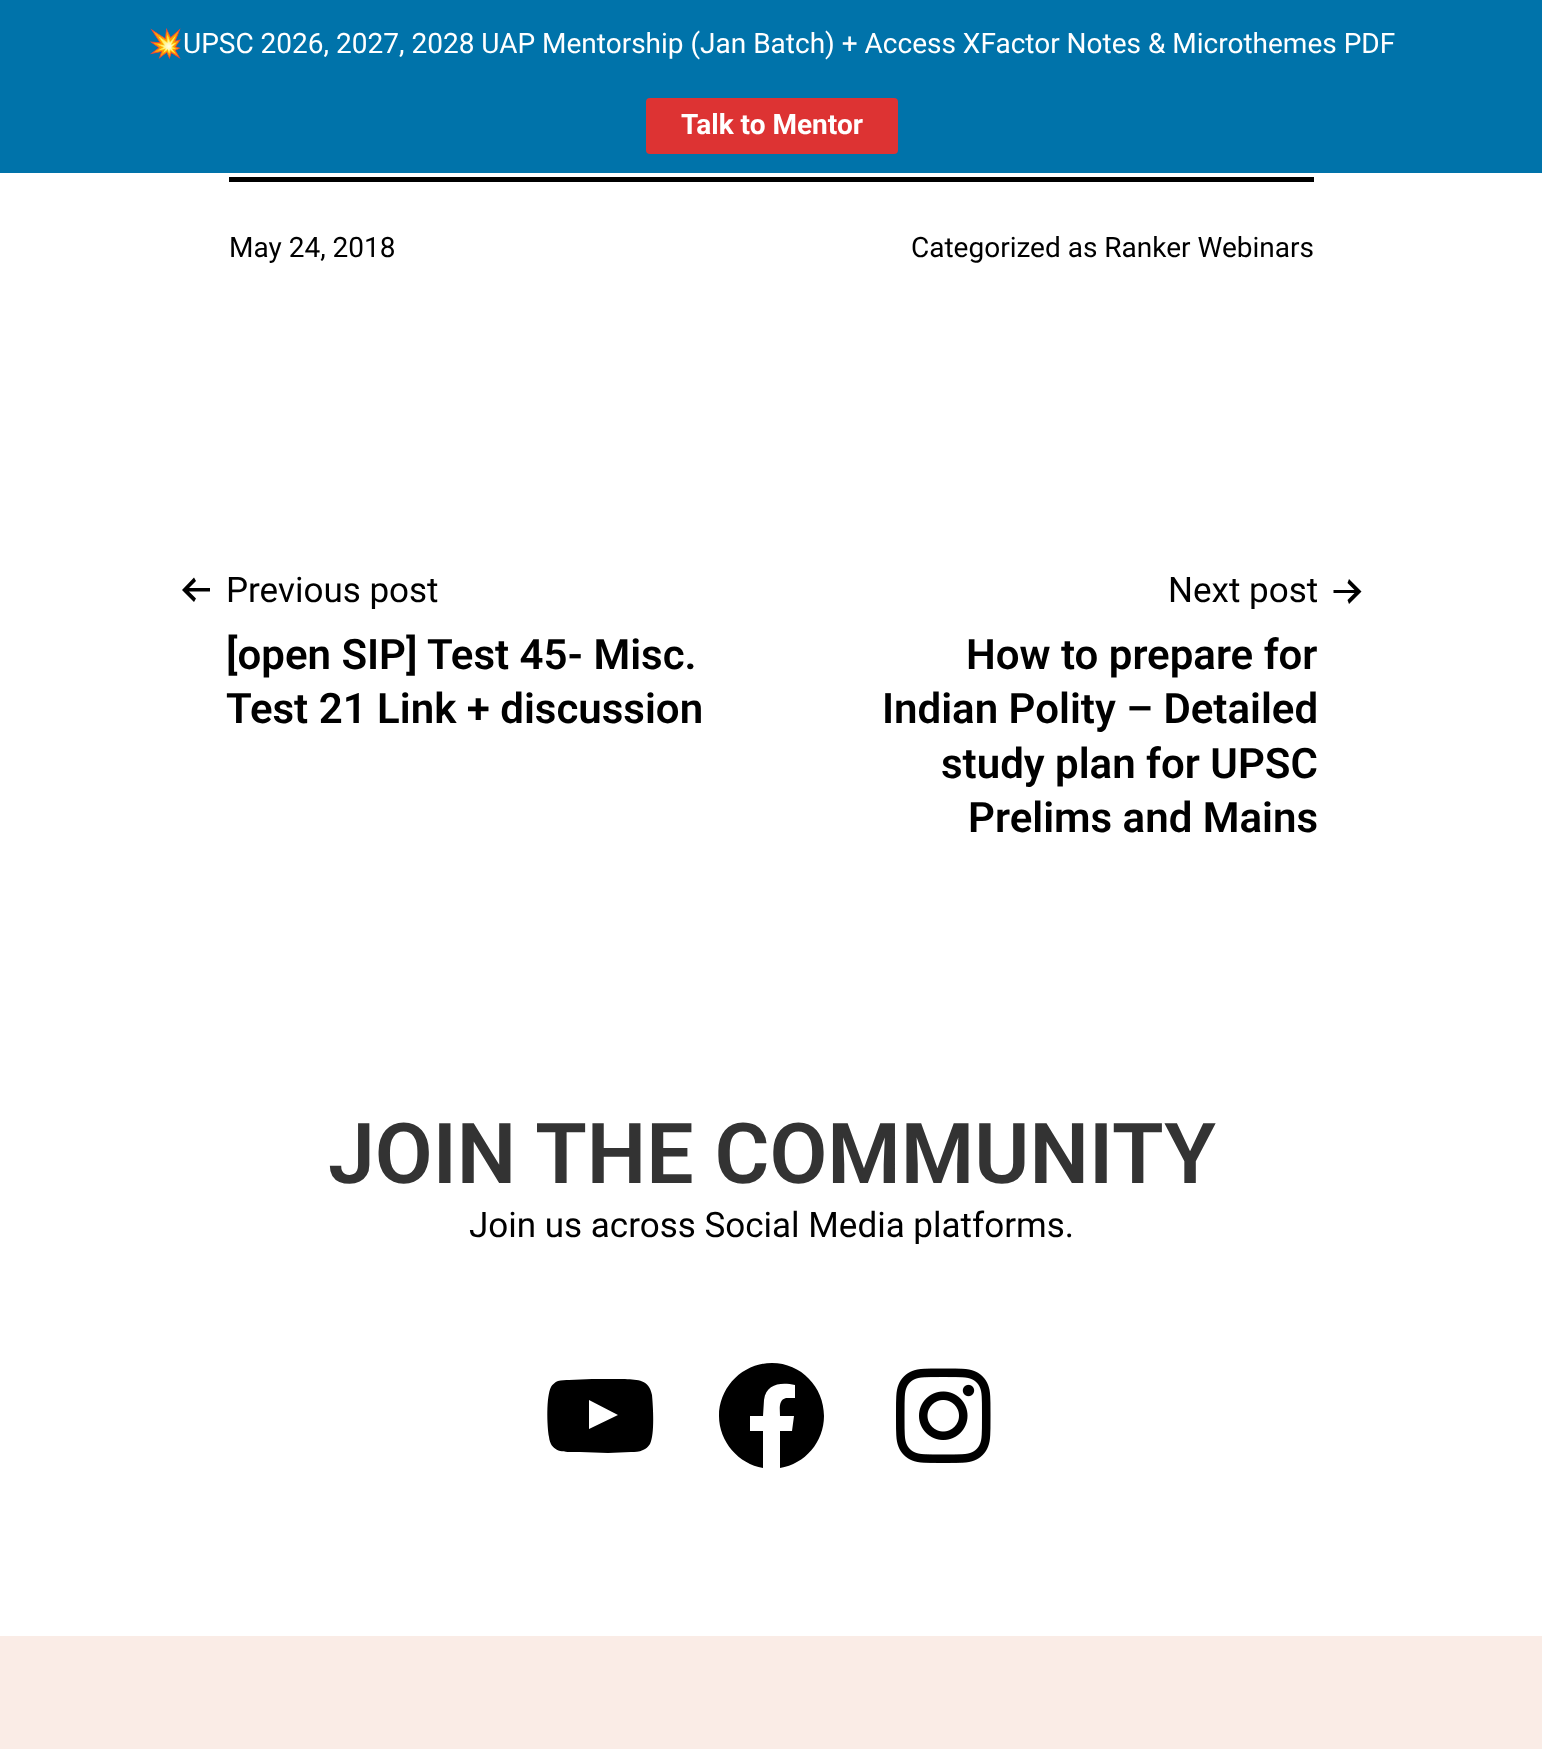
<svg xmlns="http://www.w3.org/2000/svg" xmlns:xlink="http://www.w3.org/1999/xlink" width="1542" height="1749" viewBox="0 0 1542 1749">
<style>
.cls-1{font:28px Noto Color Emoji;fill:#ffffff}
.cls-2{font:28px Roboto;fill:#ffffff}
.cls-3{font:bold 28px Roboto;fill:#ffffff}
.cls-4{font:28px Roboto;fill:#000000}
.cls-5{font:35px Roboto;fill:#000000}
.cls-6{font:600 42px Roboto;fill:#000000}
.cls-7{font:600 84px Roboto;fill:#333333}
</style>
<rect width="100%" height="100%" fill="#ffffff"/>
<rect fill="#0073aa" x="0" y="0" width="1542" height="173"/>
<rect fill="#dd3333" x="646" y="98" width="252" height="56" rx="4"/>
<rect fill="#000000" x="229" y="177" width="1085" height="5"/>
<path fill="#000000" fill-rule="evenodd" d="M210 591.5V588H189L196 581L194 577.5L182 590L194 602L196 598.5L189 591.5Z"/>
<path fill="#000000" fill-rule="evenodd" d="M1333.5 593V590H1354.5L1347.5 583L1349 579L1361.5 591.5L1349 604L1347.5 600L1354.5 593Z"/>
<path fill="#000000" d="M652 1395C649 1379 638 1380 625 1379H592L569 1380C566 1380 561 1380 558 1381C555 1382 552 1385 551 1387C546 1397 547 1426 549 1437C551 1454 566 1452 580 1452L608 1453L631 1452C635 1452 639 1452 643 1450C646 1449 648 1447 650 1444C655 1434 653 1406 652 1395ZM589 1429V1400L618 1415Z"/>
<path fill="#000000" d="M772 1363C743 1363 719 1387 719 1416C719 1442 739 1464 763 1468V1431H750V1416H763L764 1400C766 1383 782 1382 795 1385V1398H786C778 1400 780 1410 780 1416H794L792 1431H780V1468C805 1464 824 1442 824 1416C824 1387 801 1363 772 1363Z"/>
<image xlink:href="image0.png" x="896" y="1368" width="95" height="95"/>
<rect fill="#faece6" x="0" y="1636" width="1542" height="113"/>
<text class="cls-1" x="148" y="53">💥</text>
<text class="cls-2" x="183" y="53">UPSC 2026, 2027, 2028 UAP Mentorship (Jan Batch) + Access XFactor Notes &amp; Microthemes PDF</text>
<text class="cls-3" x="681" y="134">Talk to Mentor</text>
<text class="cls-4" x="229" y="257">May 24, 2018</text>
<text class="cls-4" x="911" y="257">Categorized as Ranker Webinars</text>
<text class="cls-5" x="226" y="602">Previous post</text>
<text class="cls-6"><tspan x="226" y="669">[open SIP] Test 45- Misc.</tspan><tspan x="226" y="723">Test 21 Link + discussion</tspan></text>
<text class="cls-5" x="1168" y="602">Next post</text>
<text class="cls-6" x="966" y="669">How to prepare for</text>
<text class="cls-6" x="882" y="723">Indian Polity – Detailed</text>
<text class="cls-6" x="941" y="778">study plan for UPSC</text>
<text class="cls-6" x="968" y="832">Prelims and Mains</text>
<text class="cls-7" x="328" y="1183">JOIN THE COMMUNITY</text>
<text class="cls-5" x="469" y="1237">Join us across Social Media platforms.</text>
</svg>
